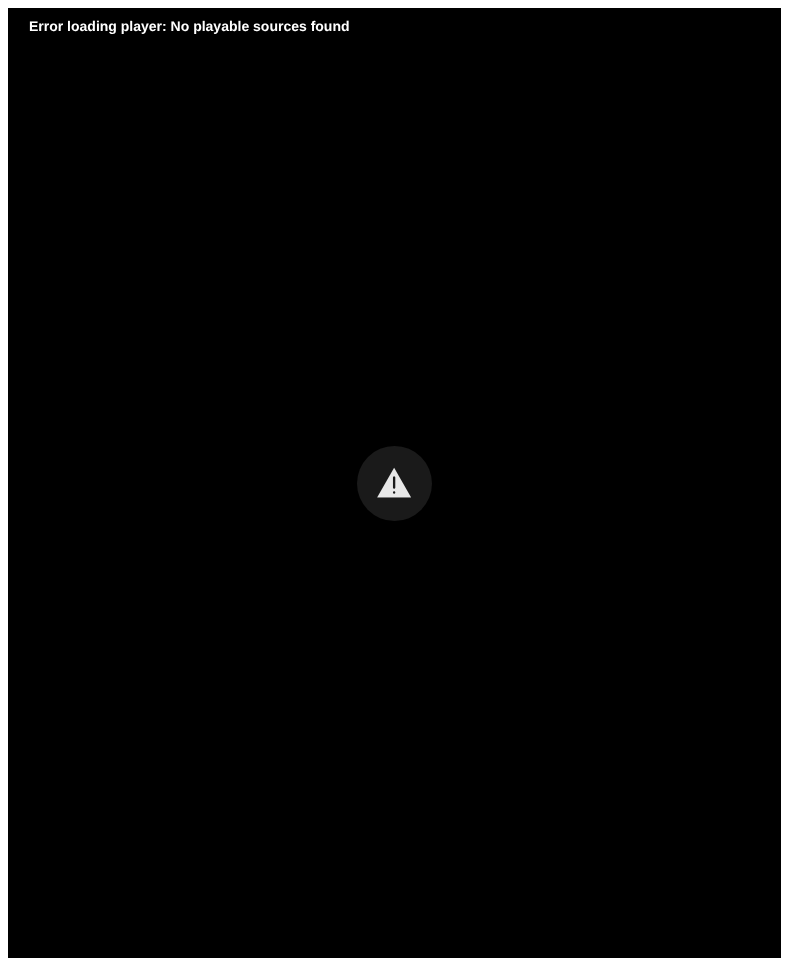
<svg xmlns="http://www.w3.org/2000/svg" xmlns:xlink="http://www.w3.org/1999/xlink" width="789" height="966" viewBox="0 0 789 966">
<style>
.cls-1{font:bold 14px Liberation Sans;fill:#ffffff}
</style>
<rect width="100%" height="100%" fill="#ffffff"/>
<rect fill="#000000" x="8" y="8" width="773" height="950"/>
<circle fill="#1a1a1a" cx="394.5" cy="483.5" r="37.5"/>
<image xlink:href="image0.png" x="377" y="467" width="34" height="31"/>
<text class="cls-1" x="29" y="31">Error loading player: No playable sources found</text>
</svg>
